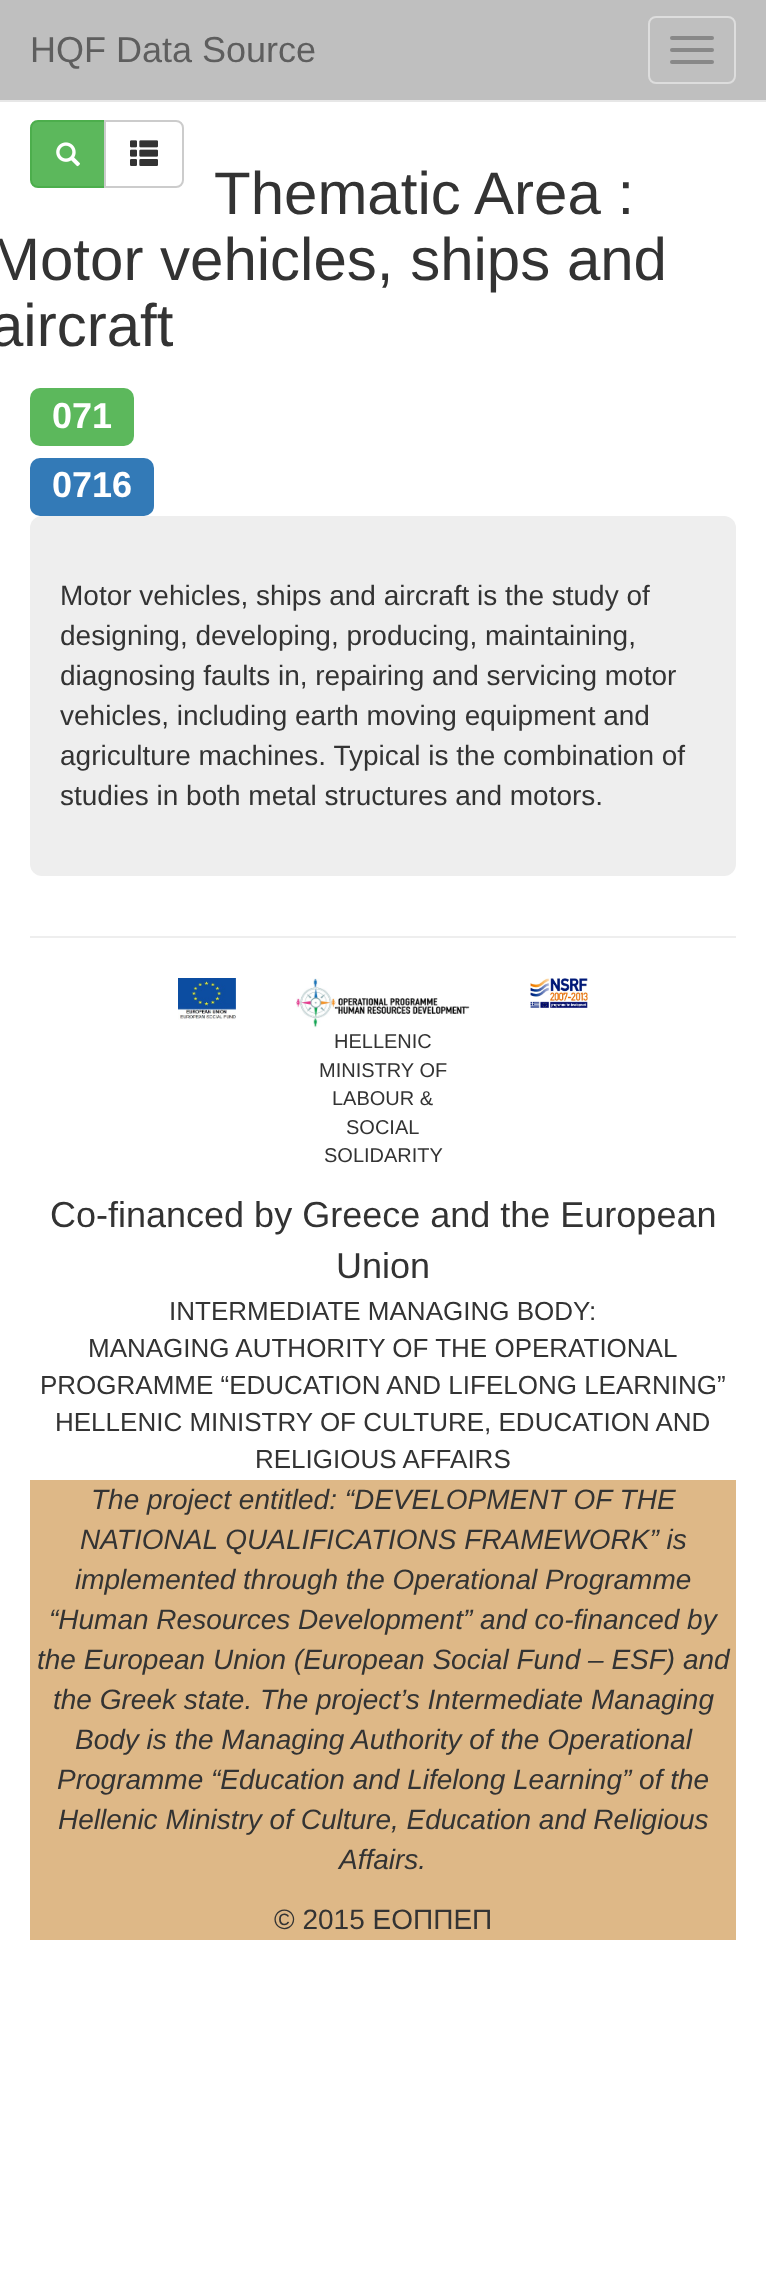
<svg xmlns="http://www.w3.org/2000/svg" xmlns:xlink="http://www.w3.org/1999/xlink" width="766" height="2282" viewBox="0 0 766 2282">
<style>
.cls-1{font:36px Liberation Sans;fill:#5e5e5e}
.cls-2{font:60px Liberation Sans;fill:#333333}
.cls-3{font:bold 36px Liberation Sans;fill:#ffffff}
.cls-4{font:28px Liberation Sans;fill:#333333}
.cls-5{font:20px Liberation Sans;fill:#333333}
.cls-6{font:36px Liberation Sans;fill:#333333}
.cls-7{font:26px Liberation Sans;fill:#333333}
.cls-8{font:italic 28px Liberation Sans;fill:#333333}
</style>
<rect width="100%" height="100%" fill="#ffffff"/>
<rect fill="#bfbfbf" x="0" y="0" width="766" height="100"/>
<rect fill="#e7e7e7" x="0" y="100" width="766" height="2"/>
<rect fill="none" stroke="#dddddd" stroke-width="2" x="649" y="17" width="86" height="66" rx="7"/>
<rect fill="#888888" x="670" y="36" width="44" height="4" rx="2"/>
<rect fill="#888888" x="670" y="48" width="44" height="4" rx="2"/>
<rect fill="#888888" x="670" y="60" width="44" height="4" rx="2"/>
<path fill="#5cb85c" stroke="#4cae4c" stroke-width="2" d="M38 121H105V187H38C34 187 31 184 31 180V128C31 124 34 121 38 121Z"/>
<image xlink:href="image0.png" x="56" y="142" width="24" height="25"/>
<path fill="#ffffff" stroke="#cccccc" stroke-width="2" d="M105 121H176C180 121 183 124 183 128V180C183 184 180 187 176 187H105Z"/>
<image xlink:href="image1.png" x="130" y="140" width="28" height="26"/>
<rect fill="#5cb85c" x="30" y="388" width="104" height="58" rx="10"/>
<rect fill="#337ab7" x="30" y="458" width="124" height="58" rx="10"/>
<rect fill="#eeeeee" x="30" y="516" width="706" height="360" rx="12"/>
<rect fill="#eeeeee" x="30" y="936" width="706" height="2"/>
<image xlink:href="image2.png" x="178" y="978" width="58" height="42"/>
<image xlink:href="image3.png" x="530" y="978" width="58" height="30"/>
<image xlink:href="image4.png" x="296" y="978" width="174" height="50"/>
<rect fill="#deb887" x="30" y="1480" width="706" height="460"/>
<text class="cls-1" x="30" y="62">HQF Data Source</text>
<text class="cls-2" x="214" y="214">Thematic Area :</text>
<text class="cls-2"><tspan x="-10" y="280">Motor vehicles, ships and</tspan><tspan x="-10" y="346">aircraft</tspan></text>
<text class="cls-3"><tspan x="52" y="428">071</tspan><tspan x="52" y="497">0716</tspan></text>
<text class="cls-4"><tspan x="60" y="605">Motor vehicles, ships and aircraft is the study of</tspan><tspan x="60" y="645">designing, developing, producing, maintaining,</tspan><tspan x="60" y="685">diagnosing faults in, repairing and servicing motor</tspan><tspan x="60" y="725">vehicles, including earth moving equipment and</tspan><tspan x="60" y="765">agriculture machines. Typical is the combination of</tspan><tspan x="60" y="805">studies in both metal structures and motors.</tspan></text>
<text class="cls-5" x="334" y="1048">HELLENIC</text>
<text class="cls-5" x="319" y="1077">MINISTRY OF</text>
<text class="cls-5" x="332" y="1105">LABOUR &amp;</text>
<text class="cls-5" x="346" y="1134">SOCIAL</text>
<text class="cls-5" x="324" y="1162">SOLIDARITY</text>
<text class="cls-6" x="50" y="1227">Co-financed by Greece and the European</text>
<text class="cls-6" x="336" y="1278">Union</text>
<text class="cls-7" x="169" y="1320">INTERMEDIATE MANAGING BODY:</text>
<text class="cls-7" x="88" y="1357">MANAGING AUTHORITY OF THE OPERATIONAL</text>
<text class="cls-7" x="40" y="1394">PROGRAMME “EDUCATION AND LIFELONG LEARNING”</text>
<text class="cls-7" x="55" y="1431">HELLENIC MINISTRY OF CULTURE, EDUCATION AND</text>
<text class="cls-7" x="255" y="1468">RELIGIOUS AFFAIRS</text>
<text class="cls-8" x="91" y="1509">The project entitled: “DEVELOPMENT OF THE</text>
<text class="cls-8" x="80" y="1549">NATIONAL QUALIFICATIONS FRAMEWORK” is</text>
<text class="cls-8" x="75" y="1589">implemented through the Operational Programme</text>
<text class="cls-8" x="49" y="1629">“Human Resources Development” and co-financed by</text>
<text class="cls-8" x="37" y="1669">the European Union (European Social Fund – ESF) and</text>
<text class="cls-8" x="53" y="1709">the Greek state. The project’s Intermediate Managing</text>
<text class="cls-8" x="75" y="1749">Body is the Managing Authority of the Operational</text>
<text class="cls-8" x="57" y="1789">Programme “Education and Lifelong Learning” of the</text>
<text class="cls-8" x="58" y="1829">Hellenic Ministry of Culture, Education and Religious</text>
<text class="cls-8" x="339" y="1869">Affairs.</text>
<text class="cls-4" x="274" y="1929">© 2015 ΕΟΠΠΕΠ</text>
</svg>
